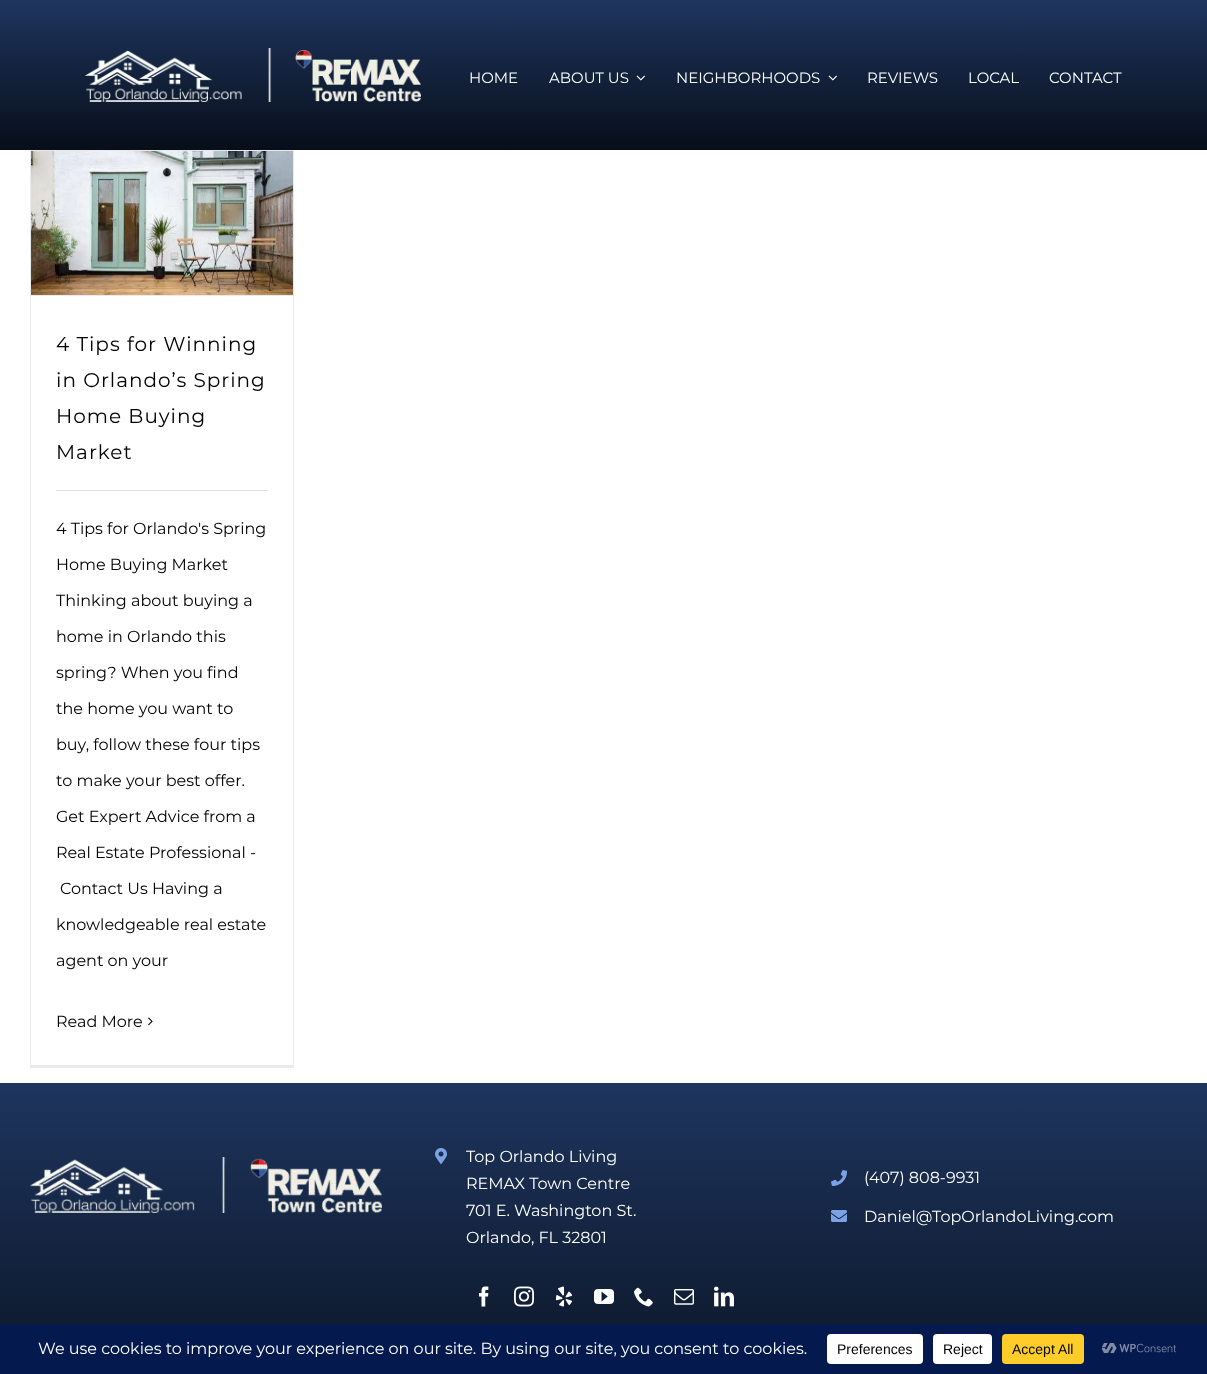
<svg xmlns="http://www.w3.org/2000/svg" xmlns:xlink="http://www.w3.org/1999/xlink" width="1207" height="1374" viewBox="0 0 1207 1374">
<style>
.cls-1{font:15px Montserrat;fill:#ffffff}
.cls-2{font:20px Montserrat;letter-spacing:1px;fill:#000000}
.cls-3{font:16px Montserrat;fill:#000000}
.cls-4{font:16px Montserrat;fill:#ffffff}
.cls-5{font:14px Liberation Sans;fill:#000000}
</style>
<defs>
<linearGradient id="g1" gradientUnits="userSpaceOnUse" x1="604" y1="0" x2="604" y2="150"><stop offset="0" stop-color="#1e355e"/><stop offset="1" stop-color="#070e1a"/></linearGradient>
<linearGradient id="g2" gradientUnits="userSpaceOnUse" x1="604" y1="1083" x2="604" y2="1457"><stop offset="0" stop-color="#1e355e"/><stop offset="1" stop-color="#070e1a"/></linearGradient>
</defs>
<rect width="100%" height="100%" fill="#ffffff"/>
<rect fill="url(#g1)" x="0" y="0" width="1207" height="150"/>
<image xlink:href="image0.png" x="85" y="48" width="336" height="54"/>
<image xlink:href="image1.png" x="636" y="75" width="9" height="6"/>
<image xlink:href="image1.png" x="828" y="75" width="9" height="6"/>
<rect fill="#ebeaea" x="30" y="150" width="264" height="1"/>
<rect fill="#ebeaea" x="293" y="150" width="1" height="918"/>
<rect fill="#ebeaea" x="30" y="1065" width="264" height="3"/>
<rect fill="#ebeaea" x="30" y="150" width="1" height="918"/>
<rect fill="#ebeaea" x="31" y="295" width="262" height="1"/>
<image xlink:href="image2.png" x="31" y="151" width="262" height="144"/>
<rect fill="#e0dede" x="56" y="490" width="212" height="1"/>
<image xlink:href="image3.png" x="148" y="1017" width="5" height="9"/>
<rect fill="url(#g2)" x="0" y="1083" width="1207" height="241"/>
<image xlink:href="image4.png" x="30" y="1157" width="352" height="56"/>
<image xlink:href="image5.png" x="435" y="1148" width="12" height="16"/>
<image xlink:href="image6.png" x="831" y="1170" width="16" height="16"/>
<image xlink:href="image7.png" x="831" y="1210" width="16" height="12"/>
<image xlink:href="image8.png" x="479" y="1286" width="10" height="21"/>
<image xlink:href="image9.png" x="514" y="1286" width="20" height="21"/>
<image xlink:href="image10.png" x="555" y="1286" width="18" height="21"/>
<image xlink:href="image11.png" x="594" y="1289" width="20" height="15"/>
<image xlink:href="image12.png" x="634" y="1287" width="19" height="20"/>
<image xlink:href="image13.png" x="674" y="1289" width="20" height="16"/>
<image xlink:href="image14.png" x="714" y="1286" width="20" height="21"/>
<rect fill="#04194e" x="0" y="1324" width="1207" height="50"/>
<rect fill="#ffffff" x="827" y="1334" width="96" height="30" rx="4"/>
<rect fill="#ffffff" x="933" y="1334" width="59" height="30" rx="4"/>
<rect fill="#ffcd2a" x="1002" y="1334" width="82" height="30" rx="4"/>
<image xlink:href="image15.png" x="1101" y="1343" width="75" height="11"/>
<text class="cls-1" x="469" y="83">HOME</text>
<text class="cls-1" x="549" y="83">ABOUT US</text>
<text class="cls-1" x="676" y="83">NEIGHBORHOODS</text>
<text class="cls-1" x="867" y="83">REVIEWS</text>
<text class="cls-1" x="968" y="83">LOCAL</text>
<text class="cls-1" x="1049" y="83">CONTACT</text>
<text class="cls-2"><tspan x="56" y="351">4 Tips for Winning</tspan><tspan x="56" y="387">in Orlando’s Spring</tspan><tspan x="56" y="423">Home Buying</tspan><tspan x="56" y="459">Market</tspan></text>
<text class="cls-3" x="56" y="534">4 Tips for Orlando's Spring</text>
<text class="cls-3" x="56" y="570">Home Buying Market</text>
<text class="cls-3" x="56" y="606">Thinking about buying a</text>
<text class="cls-3" x="56" y="642">home in Orlando this</text>
<text class="cls-3" x="56" y="678">spring? When you find</text>
<text class="cls-3" x="56" y="714">the home you want to</text>
<text class="cls-3" x="56" y="750">buy, follow these four tips</text>
<text class="cls-3" x="56" y="786">to make your best offer.</text>
<text class="cls-3" x="56" y="822">Get Expert Advice from a</text>
<text class="cls-3" x="56" y="858">Real Estate Professional -</text>
<text class="cls-3" x="60" y="894">Contact Us Having a</text>
<text class="cls-3" x="56" y="930">knowledgeable real estate</text>
<text class="cls-3" x="56" y="966">agent on your</text>
<text class="cls-3" x="56" y="1027">Read More</text>
<text class="cls-4"><tspan x="466" y="1162">Top Orlando Living</tspan><tspan x="466" y="1189">REMAX Town Centre</tspan><tspan x="466" y="1216">701 E. Washington St.</tspan><tspan x="466" y="1243">Orlando, FL 32801</tspan></text>
<text class="cls-4" x="864" y="1183">(407) 808-9931</text>
<text class="cls-4" x="864" y="1222">Daniel@TopOrlandoLiving.com</text>
<text class="cls-4" x="38" y="1354">We use cookies to improve your experience on our site. By using our site, you consent to cookies.</text>
<text class="cls-5" x="837" y="1354">Preferences</text>
<text class="cls-5" x="943" y="1354">Reject</text>
<text class="cls-5" x="1012" y="1354">Accept All</text>
</svg>
